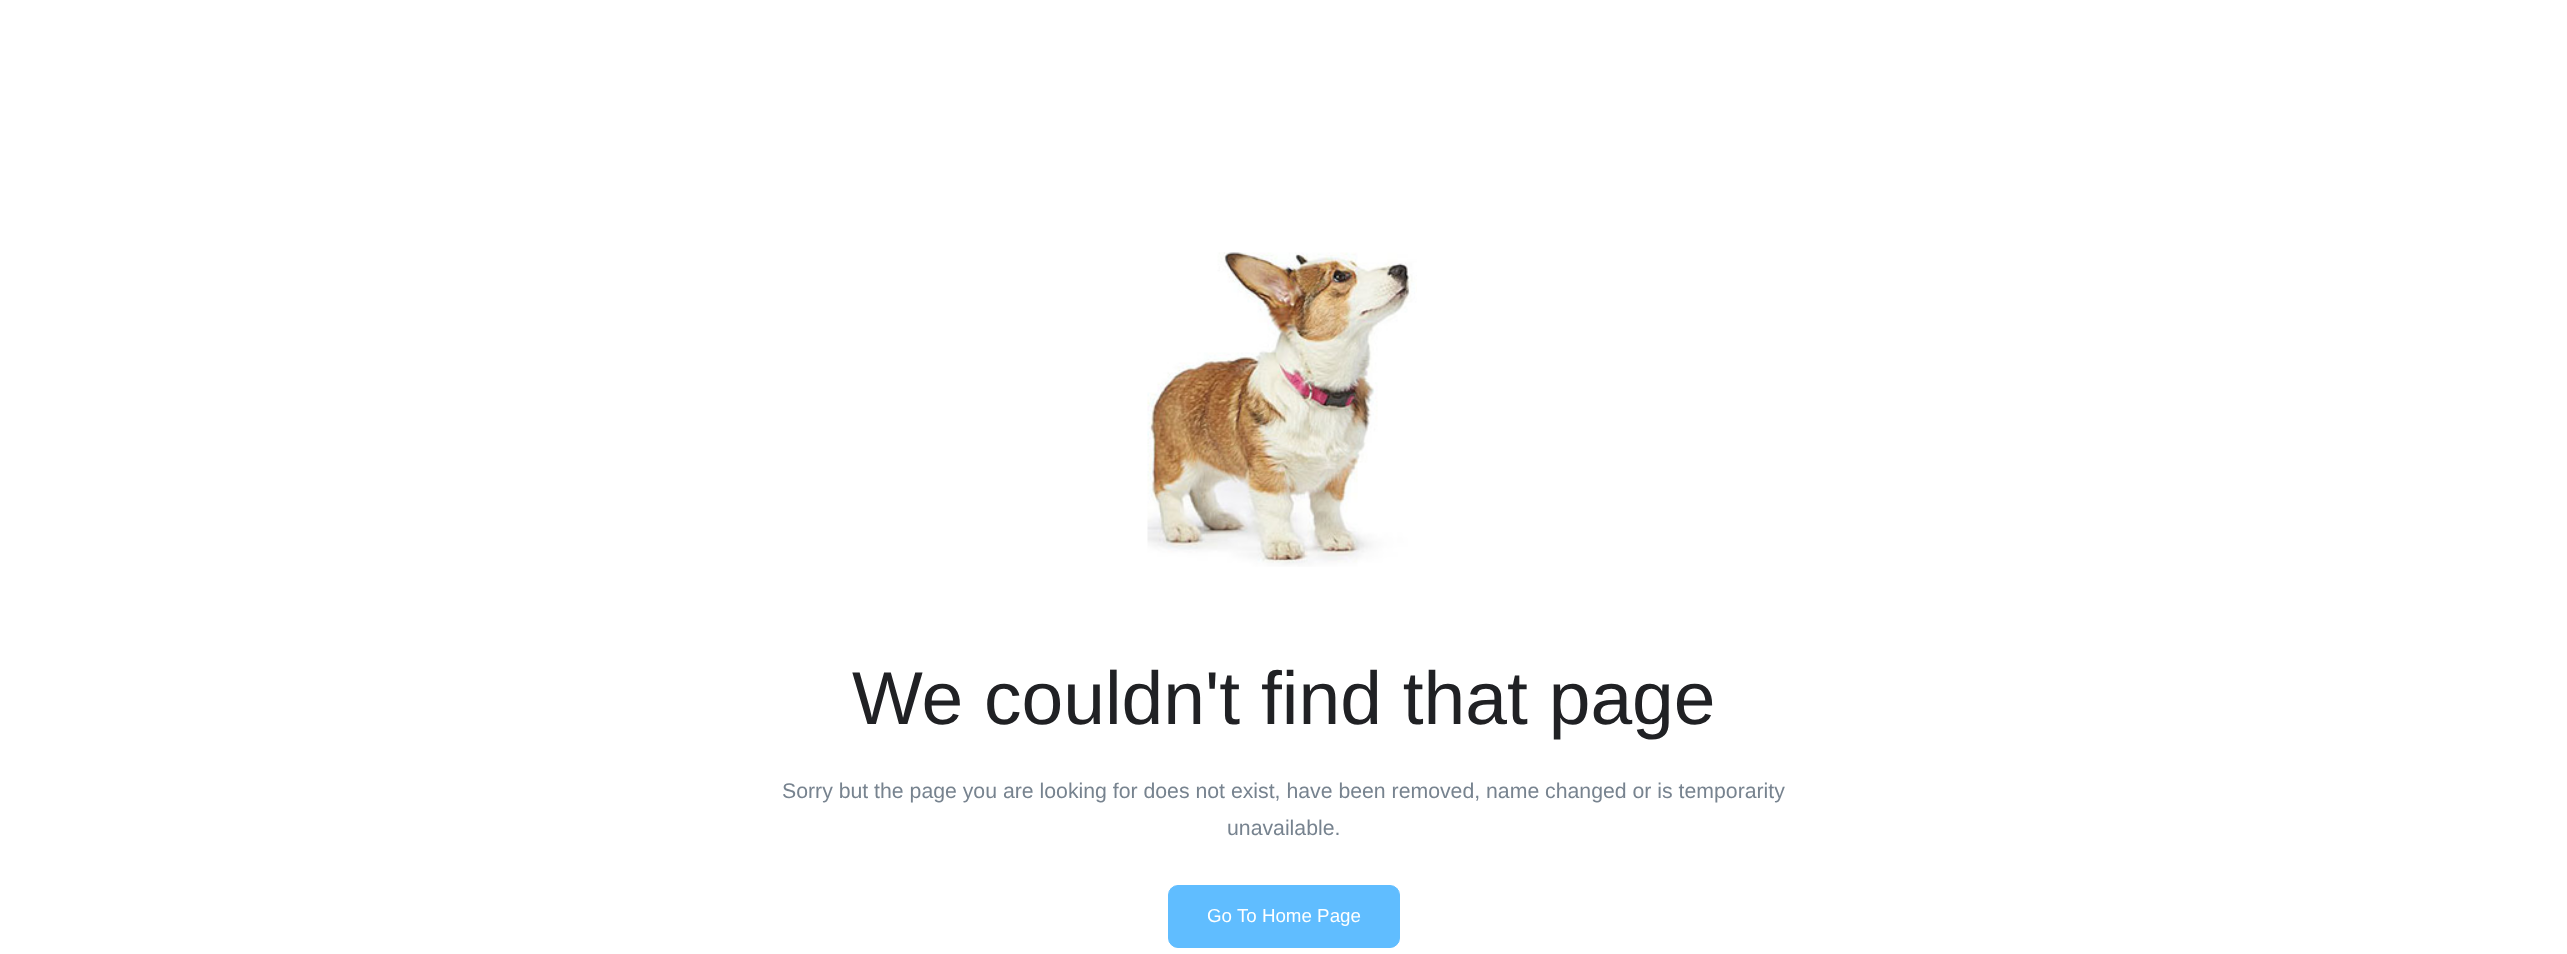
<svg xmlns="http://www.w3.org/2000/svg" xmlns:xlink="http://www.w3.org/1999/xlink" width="2567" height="954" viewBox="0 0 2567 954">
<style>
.cls-1{font:75px Liberation Sans;fill:#202124}
.cls-2{font:21.25px Liberation Sans;fill:#77838f}
.cls-3{font:18.75px Liberation Sans;fill:#ffffff}
</style>
<rect width="100%" height="100%" fill="#ffffff"/>
<image xlink:href="image0.png" x="1147" y="252" width="270" height="315"/>
<rect fill="#60bdff" stroke="#60bdff" x="1168.5" y="885.5" width="231" height="62" rx="9.5"/>
<text class="cls-1" x="852" y="724">We couldn't find that page</text>
<text class="cls-2" x="782" y="798">Sorry but the page you are looking for does not exist, have been removed, name changed or is temporarity</text>
<text class="cls-2" x="1227" y="835">unavailable.</text>
<text class="cls-3" x="1207" y="922">Go To Home Page</text>
</svg>
